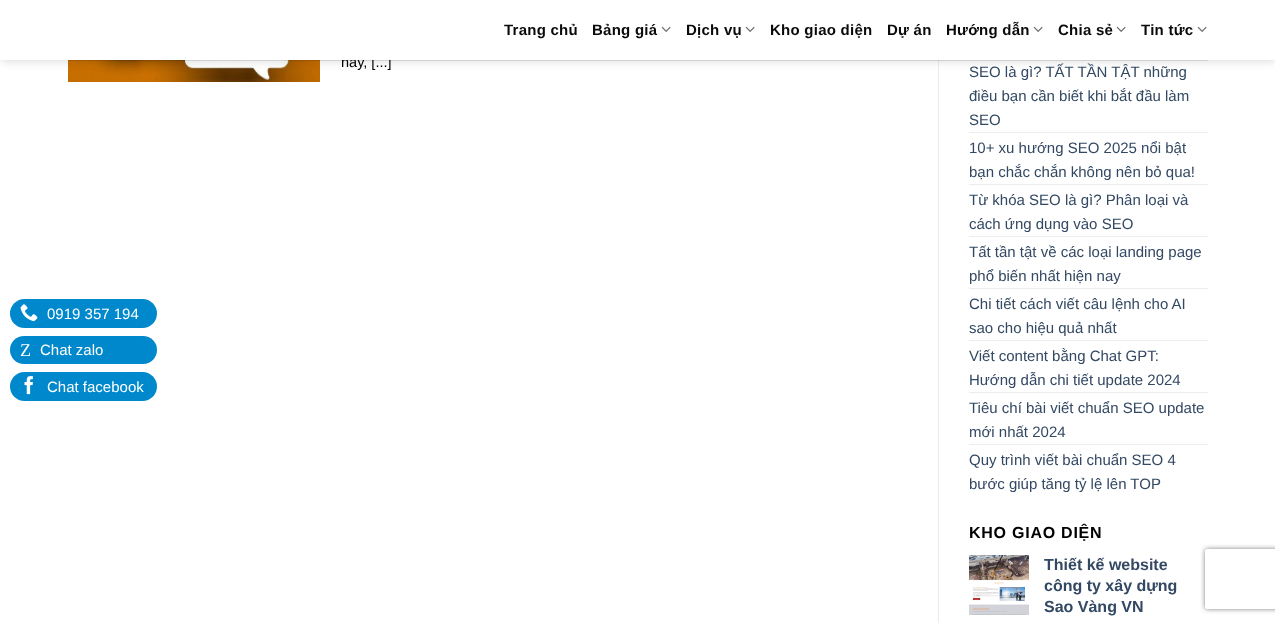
<svg xmlns="http://www.w3.org/2000/svg" xmlns:xlink="http://www.w3.org/1999/xlink" width="1275" height="623" viewBox="0 0 1275 623">
<style>
.cls-1{font:15px Liberation Sans;fill:#ffffff}
.cls-2{font:18px Liberation Serif;fill:#ffffff}
.cls-3{font:14.5px Liberation Sans;fill:#000000}
.cls-4{font:bold 15px Liberation Sans;letter-spacing:0.25px;fill:#0a0a0a}
.cls-5{font:15px Liberation Sans;fill:#334862}
.cls-6{font:bold 16px Liberation Sans;letter-spacing:0.75px;fill:#000000}
.cls-7{font:bold 16px Liberation Sans;fill:#334862}
</style>
<defs>
<clipPath id="clip1"><path d="M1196 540H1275V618H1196ZM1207 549H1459C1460 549 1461 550 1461 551V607C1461 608 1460 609 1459 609H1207C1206 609 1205 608 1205 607V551C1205 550 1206 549 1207 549Z" clip-rule="evenodd"/></clipPath>
</defs>
<rect width="100%" height="100%" fill="#ffffff"/>
<rect fill="#0088cc" x="10" y="299" width="147" height="29" rx="14.5"/>
<image xlink:href="image0.png" x="20" y="304" width="18" height="18"/>
<rect fill="#0088cc" x="10" y="336" width="147" height="28" rx="14"/>
<rect fill="#0088cc" x="10" y="372" width="147" height="29" rx="14.5"/>
<image xlink:href="image1.png" x="24" y="376" width="9" height="19"/>
<image xlink:href="image3.png" x="68" y="60" width="252" height="22"/>
<rect fill="#ececec" x="938" y="60" width="1" height="563"/>
<rect fill="#000000" fill-opacity="0.15" filter="blur(5px)" x="1" y="1" width="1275" height="60"/>
<rect fill="#000000" fill-opacity="0.1" x="68" y="60" width="1140" height="1"/>
<rect fill="#ececec" x="969" y="132" width="239" height="1"/>
<rect fill="#ececec" x="969" y="184" width="239" height="1"/>
<rect fill="#ececec" x="969" y="236" width="239" height="1"/>
<rect fill="#ececec" x="969" y="288" width="239" height="1"/>
<rect fill="#ececec" x="969" y="340" width="239" height="1"/>
<rect fill="#ececec" x="969" y="392" width="239" height="1"/>
<rect fill="#ececec" x="969" y="444" width="239" height="1"/>
<image xlink:href="image4.png" x="969" y="555" width="60" height="60"/>
<g clip-path="url(#clip1)">
<rect fill="#808080" filter="blur(2.5px)" x="1205" y="549" width="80" height="60" rx="2"/>
</g>
<text class="cls-1" x="47" y="319">0919 357 194</text>
<text class="cls-2" x="20" y="356">Z</text>
<text class="cls-1" x="40" y="355">Chat zalo</text>
<text class="cls-1" x="47" y="392">Chat facebook</text>
<text class="cls-3" x="341" y="67">này, [...]</text>
<rect fill="#ffffff" x="0" y="0" width="1275" height="60"/>
<image xlink:href="image2.png" x="1197" y="26" width="10" height="6"/>
<text class="cls-4" x="1141" y="35">Tin tức</text>
<image xlink:href="image2.png" x="1116" y="26" width="10" height="6"/>
<text class="cls-4" x="1058" y="35">Chia sẻ</text>
<image xlink:href="image2.png" x="1033" y="26" width="10" height="6"/>
<text class="cls-4" x="946" y="35">Hướng dẫn</text>
<text class="cls-4" x="887" y="35">Dự án</text>
<text class="cls-4" x="770" y="35">Kho giao diện</text>
<image xlink:href="image2.png" x="745" y="26" width="10" height="6"/>
<text class="cls-4" x="686" y="35">Dịch vụ</text>
<image xlink:href="image2.png" x="661" y="26" width="10" height="6"/>
<text class="cls-4" x="592" y="35">Bảng giá</text>
<text class="cls-4" x="504" y="35">Trang chủ</text>
<text class="cls-5"><tspan x="969" y="77">SEO là gì? TẤT TẦN TẬT những</tspan><tspan x="969" y="101">điều bạn cần biết khi bắt đầu làm</tspan><tspan x="969" y="125">SEO</tspan><tspan x="969" y="153">10+ xu hướng SEO 2025 nổi bật</tspan><tspan x="969" y="177">bạn chắc chắn không nên bỏ qua!</tspan><tspan x="969" y="205">Từ khóa SEO là gì? Phân loại và</tspan><tspan x="969" y="229">cách ứng dụng vào SEO</tspan><tspan x="969" y="257">Tất tần tật về các loại landing page</tspan><tspan x="969" y="281">phổ biến nhất hiện nay</tspan><tspan x="969" y="309">Chi tiết cách viết câu lệnh cho AI</tspan><tspan x="969" y="333">sao cho hiệu quả nhất</tspan><tspan x="969" y="361">Viết content bằng Chat GPT:</tspan><tspan x="969" y="385">Hướng dẫn chi tiết update 2024</tspan><tspan x="969" y="413">Tiêu chí bài viết chuẩn SEO update</tspan><tspan x="969" y="437">mới nhất 2024</tspan><tspan x="969" y="465">Quy trình viết bài chuẩn SEO 4</tspan><tspan x="969" y="489">bước giúp tăng tỷ lệ lên TOP</tspan></text>
<text class="cls-6" x="969" y="538">KHO GIAO DIỆN</text>
<text class="cls-7"><tspan x="1044" y="570">Thiết kế website</tspan><tspan x="1044" y="591">công ty xây dựng</tspan><tspan x="1044" y="612">Sao Vàng VN</tspan></text>
</svg>
